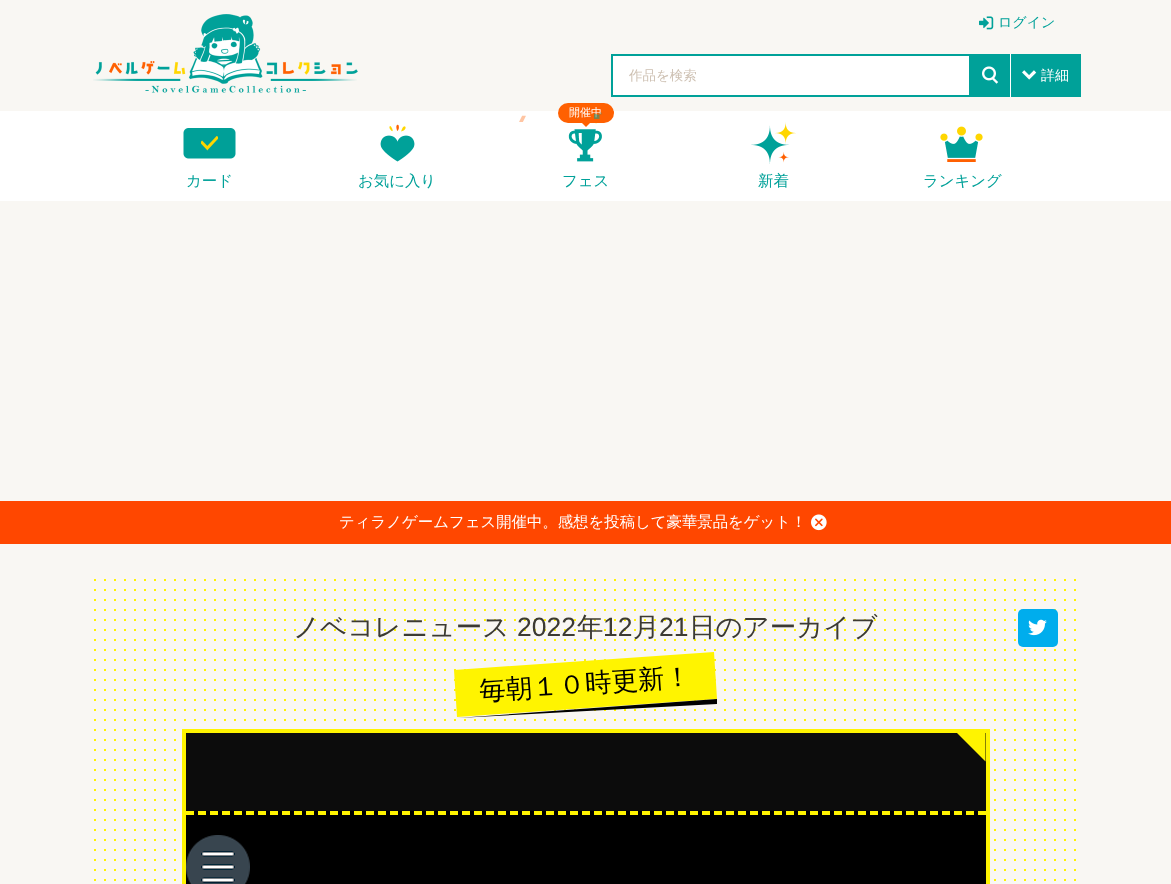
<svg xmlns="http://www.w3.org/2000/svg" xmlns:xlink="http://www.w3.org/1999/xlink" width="1171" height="884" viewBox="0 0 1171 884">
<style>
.cls-1{font:500 14px WenQuanYi Zen Hei;fill:#00a199}
.cls-2{font:500 15.4px WenQuanYi Zen Hei;fill:#00a199}
.cls-3{font:500 11px WenQuanYi Zen Hei;fill:#ffffff}
.cls-4{font:500 13.5px WenQuanYi Zen Hei;fill:#cec1b3}
.cls-5{font:500 14px WenQuanYi Zen Hei;fill:#ffffff}
.cls-6{font:500 15.4px WenQuanYi Zen Hei;fill:#ffffff}
.cls-7{font:500 26.5px WenQuanYi Zen Hei;fill:#3c3a33}
.cls-8{font:26.5px Liberation Sans;fill:#3c3a33}
.cls-9{font:500 26.5px WenQuanYi Zen Hei;fill:#000000}
</style>
<rect width="100%" height="100%" fill="#f9f7f3"/>
<image xlink:href="image0.png" x="93" y="14" width="265" height="79"/>
<rect fill="#ffffff" x="0" y="111" width="1171" height="90"/>
<image xlink:href="image1.png" x="979" y="16" width="15" height="14"/>
<image xlink:href="image2.png" x="183" y="128" width="53" height="31"/>
<image xlink:href="image3.png" x="380" y="124" width="35" height="38"/>
<image xlink:href="image4.png" x="519" y="115" width="78" height="9"/>
<image xlink:href="image5.png" x="519" y="115" width="78" height="9"/>
<rect fill="#ff6001" x="558" y="103" width="56" height="20" rx="10"/>
<path fill="#ff6001" d="M581 122H591L586 127Z"/>
<image xlink:href="image7.png" x="568" y="129" width="34" height="33"/>
<image xlink:href="image8.png" x="751" y="122" width="45" height="42"/>
<image xlink:href="image9.png" x="940" y="126" width="43" height="36"/>
<rect fill="#ffffff" stroke="#00a199" stroke-width="2" x="612" y="55" width="358" height="41"/>
<rect fill="#00a199" x="971" y="54" width="39" height="43"/>
<rect fill="#ffffff" x="1010" y="54" width="1" height="43"/>
<image xlink:href="image10.png" x="982" y="66" width="17" height="18"/>
<rect fill="#00a199" x="1011" y="54" width="70" height="43"/>
<image xlink:href="image11.png" x="1022" y="70" width="15" height="10"/>
<rect fill="none" stroke="#ff4700" x="0.5" y="501.5" width="1170" height="42"/>
<rect fill="#ff4700" x="1" y="502" width="1169" height="41"/>
<image xlink:href="image12.png" x="811" y="514" width="16" height="17"/>
<image xlink:href="image13.png" x="94" y="579" width="984" height="305"/>
<rect fill="#00aded" x="1018" y="609" width="40" height="38" rx="5"/>
<image xlink:href="image14.png" x="1028" y="619" width="19" height="17"/>
<path fill="#fff400" d="M454 670L714 652L717 699L457 717Z"/>
<path fill="#000000" d="M717 704L457 718L717 699Z"/>
<rect fill="none" stroke="#fff400" stroke-width="4" x="184" y="731" width="804" height="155"/>
<rect fill="#000000" x="186" y="811" width="800" height="73"/>
<rect fill="#0c0c0c" x="186" y="733" width="800" height="78"/>
<path fill="none" stroke="#fff400" stroke-width="4" stroke-dasharray="8 4" d="M186 813H986"/>
<path fill="#fff400" d="M985.5 761.5L957 733H985.5Z"/>
<image xlink:href="image15.png" x="186" y="835" width="64" height="49"/>
<text class="cls-1" x="998" y="27">ログイン</text>
<text class="cls-2" x="186" y="186">カード</text>
<text class="cls-2" x="358" y="186">お気に入り</text>
<text class="cls-3" x="569" y="116">開催中</text>
<image xlink:href="image6.png" x="594" y="112" width="9" height="7"/>
<text class="cls-2" x="562" y="186">フェス</text>
<text class="cls-2" x="758" y="186">新着</text>
<text class="cls-2" x="923" y="186">ランキング</text>
<text class="cls-4" x="629" y="80">作品を検索</text>
<text class="cls-5" x="1041" y="80">詳細</text>
<text class="cls-6" x="339" y="527">ティラノゲームフェス開催中。感想を投稿して豪華景品をゲット！</text>
<text class="cls-7" x="293" y="636">ノベコレニュース</text>
<text class="cls-8" x="517" y="636">2022</text>
<text class="cls-7" x="577" y="636">年</text>
<text class="cls-8" x="603" y="636">12</text>
<text class="cls-7" x="633" y="636">月</text>
<text class="cls-8" x="659" y="636">21</text>
<text class="cls-7" x="689" y="636">日のアーカイブ</text>
<text class="cls-9" x="480" y="700" transform="rotate(-4 480 700)">毎朝１０時更新！</text>
</svg>
